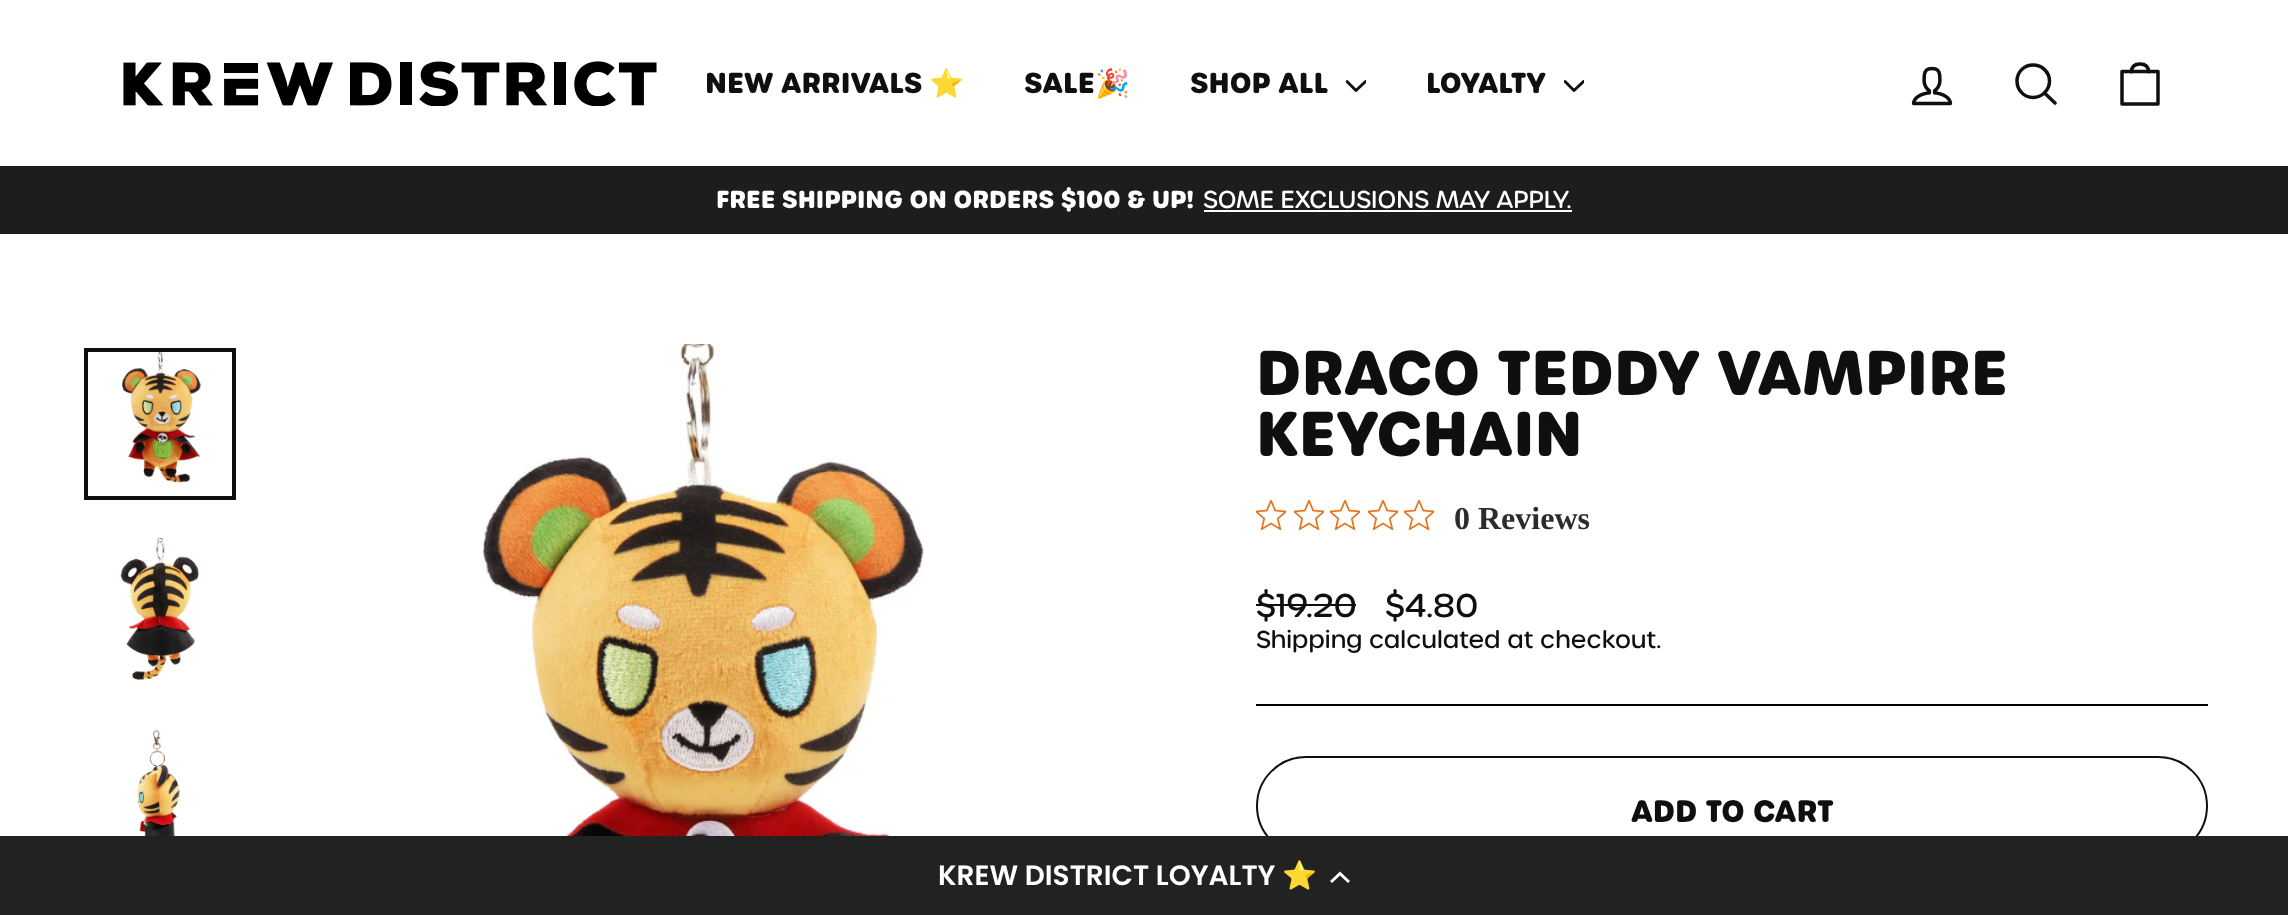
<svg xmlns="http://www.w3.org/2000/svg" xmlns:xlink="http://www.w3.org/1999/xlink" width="2288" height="915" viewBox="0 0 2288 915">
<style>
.cls-1{font:bold 28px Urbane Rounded;fill:#0f0f0f}
.cls-2{font:bold 28px Noto Color Emoji;fill:#0f0f0f}
.cls-3{font:bold 24px Urbane Rounded;fill:#ffffff}
.cls-4{font:500 23.75px Urbane Rounded;fill:#ffffff}
.cls-5{font:bold 61.25px Urbane Rounded;fill:#0f0f0f}
.cls-6{font:bold 32px Liberation Serif;fill:#2c2c2c}
.cls-7{font:500 32px Urbane Rounded;fill:#0f0f0f}
.cls-8{font:500 23.75px Urbane Rounded;fill:#0f0f0f}
.cls-9{font:bold 30px Urbane Rounded;fill:#0f0f0f}
.cls-10{font:600 28px Poppins;fill:#ffffff}
.cls-11{font:bold 28px Noto Color Emoji;fill:#ffffff}
</style>
<defs>
<clipPath id="clip1"><rect x="1346" y="76" width="20" height="20"/></clipPath>
<clipPath id="clip2"><rect x="1564" y="76" width="20" height="20"/></clipPath>
</defs>
<rect width="100%" height="100%" fill="#ffffff"/>
<image xlink:href="image0.png" x="123" y="61" width="534" height="45"/>
<g clip-path="url(#clip1)">
<path fill="none" stroke="#0f0f0f" stroke-width="2.9" stroke-linecap="round" stroke-linejoin="round" d="M1347 81.5L1356 90.5L1365.5 81.5"/>
</g>
<g clip-path="url(#clip2)">
<path fill="none" stroke="#0f0f0f" stroke-width="2.9" stroke-linecap="round" stroke-linejoin="round" d="M1565 81.5L1574 90.5L1583.5 81.5"/>
</g>
<image xlink:href="image1.png" x="1911" y="66" width="42" height="40"/>
<path fill="none" stroke="#0f0f0f" stroke-width="3.5" stroke-linecap="round" stroke-linejoin="round" d="M2049.5 81C2049.5 90 2042 97.5 2033 97.5C2024 97.5 2017 90 2017 81C2017 72 2024 65 2033 65C2042 65 2049.5 72 2049.5 81ZM2055 103L2044.5 93"/>
<path fill="none" stroke="#0f0f0f" stroke-width="3.5" stroke-linecap="round" stroke-linejoin="round" d="M2122 71.5H2158V104H2122ZM2131.5 72C2131.5 65.5 2135.5 64 2140 64C2144.5 64 2148.5 65.5 2148.5 72"/>
<rect fill="#1c1d1d" x="0" y="166" width="2288" height="68"/>
<rect fill="#ffffff" x="1204" y="210" width="368" height="2"/>
<image xlink:href="image2.png" x="122" y="352" width="79" height="131"/>
<rect fill="none" stroke="#0f0f0f" stroke-width="4" x="86" y="350" width="148" height="148"/>
<image xlink:href="image3.png" x="120" y="538" width="79" height="142"/>
<image xlink:href="image4.png" x="137" y="730" width="43" height="106"/>
<image xlink:href="image5.png" x="482" y="344" width="442" height="492"/>
<image xlink:href="image6.png" x="1256" y="500" width="30" height="30"/>
<image xlink:href="image6.png" x="1294" y="500" width="30" height="30"/>
<image xlink:href="image6.png" x="1330" y="500" width="30" height="30"/>
<image xlink:href="image6.png" x="1368" y="500" width="30" height="30"/>
<image xlink:href="image6.png" x="1404" y="500" width="30" height="30"/>
<rect fill="#0f0f0f" x="1256" y="604" width="100" height="2"/>
<rect fill="#000000" x="1256" y="704" width="952" height="2"/>
<rect fill="none" stroke="#0f0f0f" stroke-width="2" x="1257" y="757" width="950" height="98" rx="49"/>
<rect fill="#222222" x="0" y="836" width="2288" height="79"/>
<path fill="#ffffff" d="M1340 875.5L1332 883L1330 881L1340 871.5L1350 881L1348 883Z"/>
<text class="cls-1" x="705" y="93">NEW ARRIVALS</text>
<text class="cls-2" x="929" y="93">⭐</text>
<text class="cls-1" x="1024" y="93">SALE</text>
<text class="cls-2" x="1095" y="93">🎉</text>
<text class="cls-1" x="1190" y="93">SHOP ALL</text>
<text class="cls-1" x="1426" y="93">LOYALTY</text>
<text class="cls-3" x="716" y="208">FREE SHIPPING ON ORDERS $100 &amp; UP!</text>
<text class="cls-4" x="1203" y="208">SOME EXCLUSIONS MAY APPLY.</text>
<text class="cls-5"><tspan x="1256" y="395">DRACO TEDDY VAMPIRE</tspan><tspan x="1256" y="456">KEYCHAIN</tspan></text>
<text class="cls-6" x="1454" y="529">0 Reviews</text>
<text class="cls-7" x="1256" y="617">$19.20</text>
<text class="cls-7" x="1385" y="617">$4.80</text>
<text class="cls-8" x="1256" y="648">Shipping</text>
<text class="cls-8" x="1369" y="648">calculated at checkout.</text>
<text class="cls-9" x="1631" y="822">ADD TO CART</text>
<text class="cls-10" x="938" y="885">KREW DISTRICT LOYALTY</text>
<text class="cls-11" x="1282" y="885">⭐</text>
</svg>
